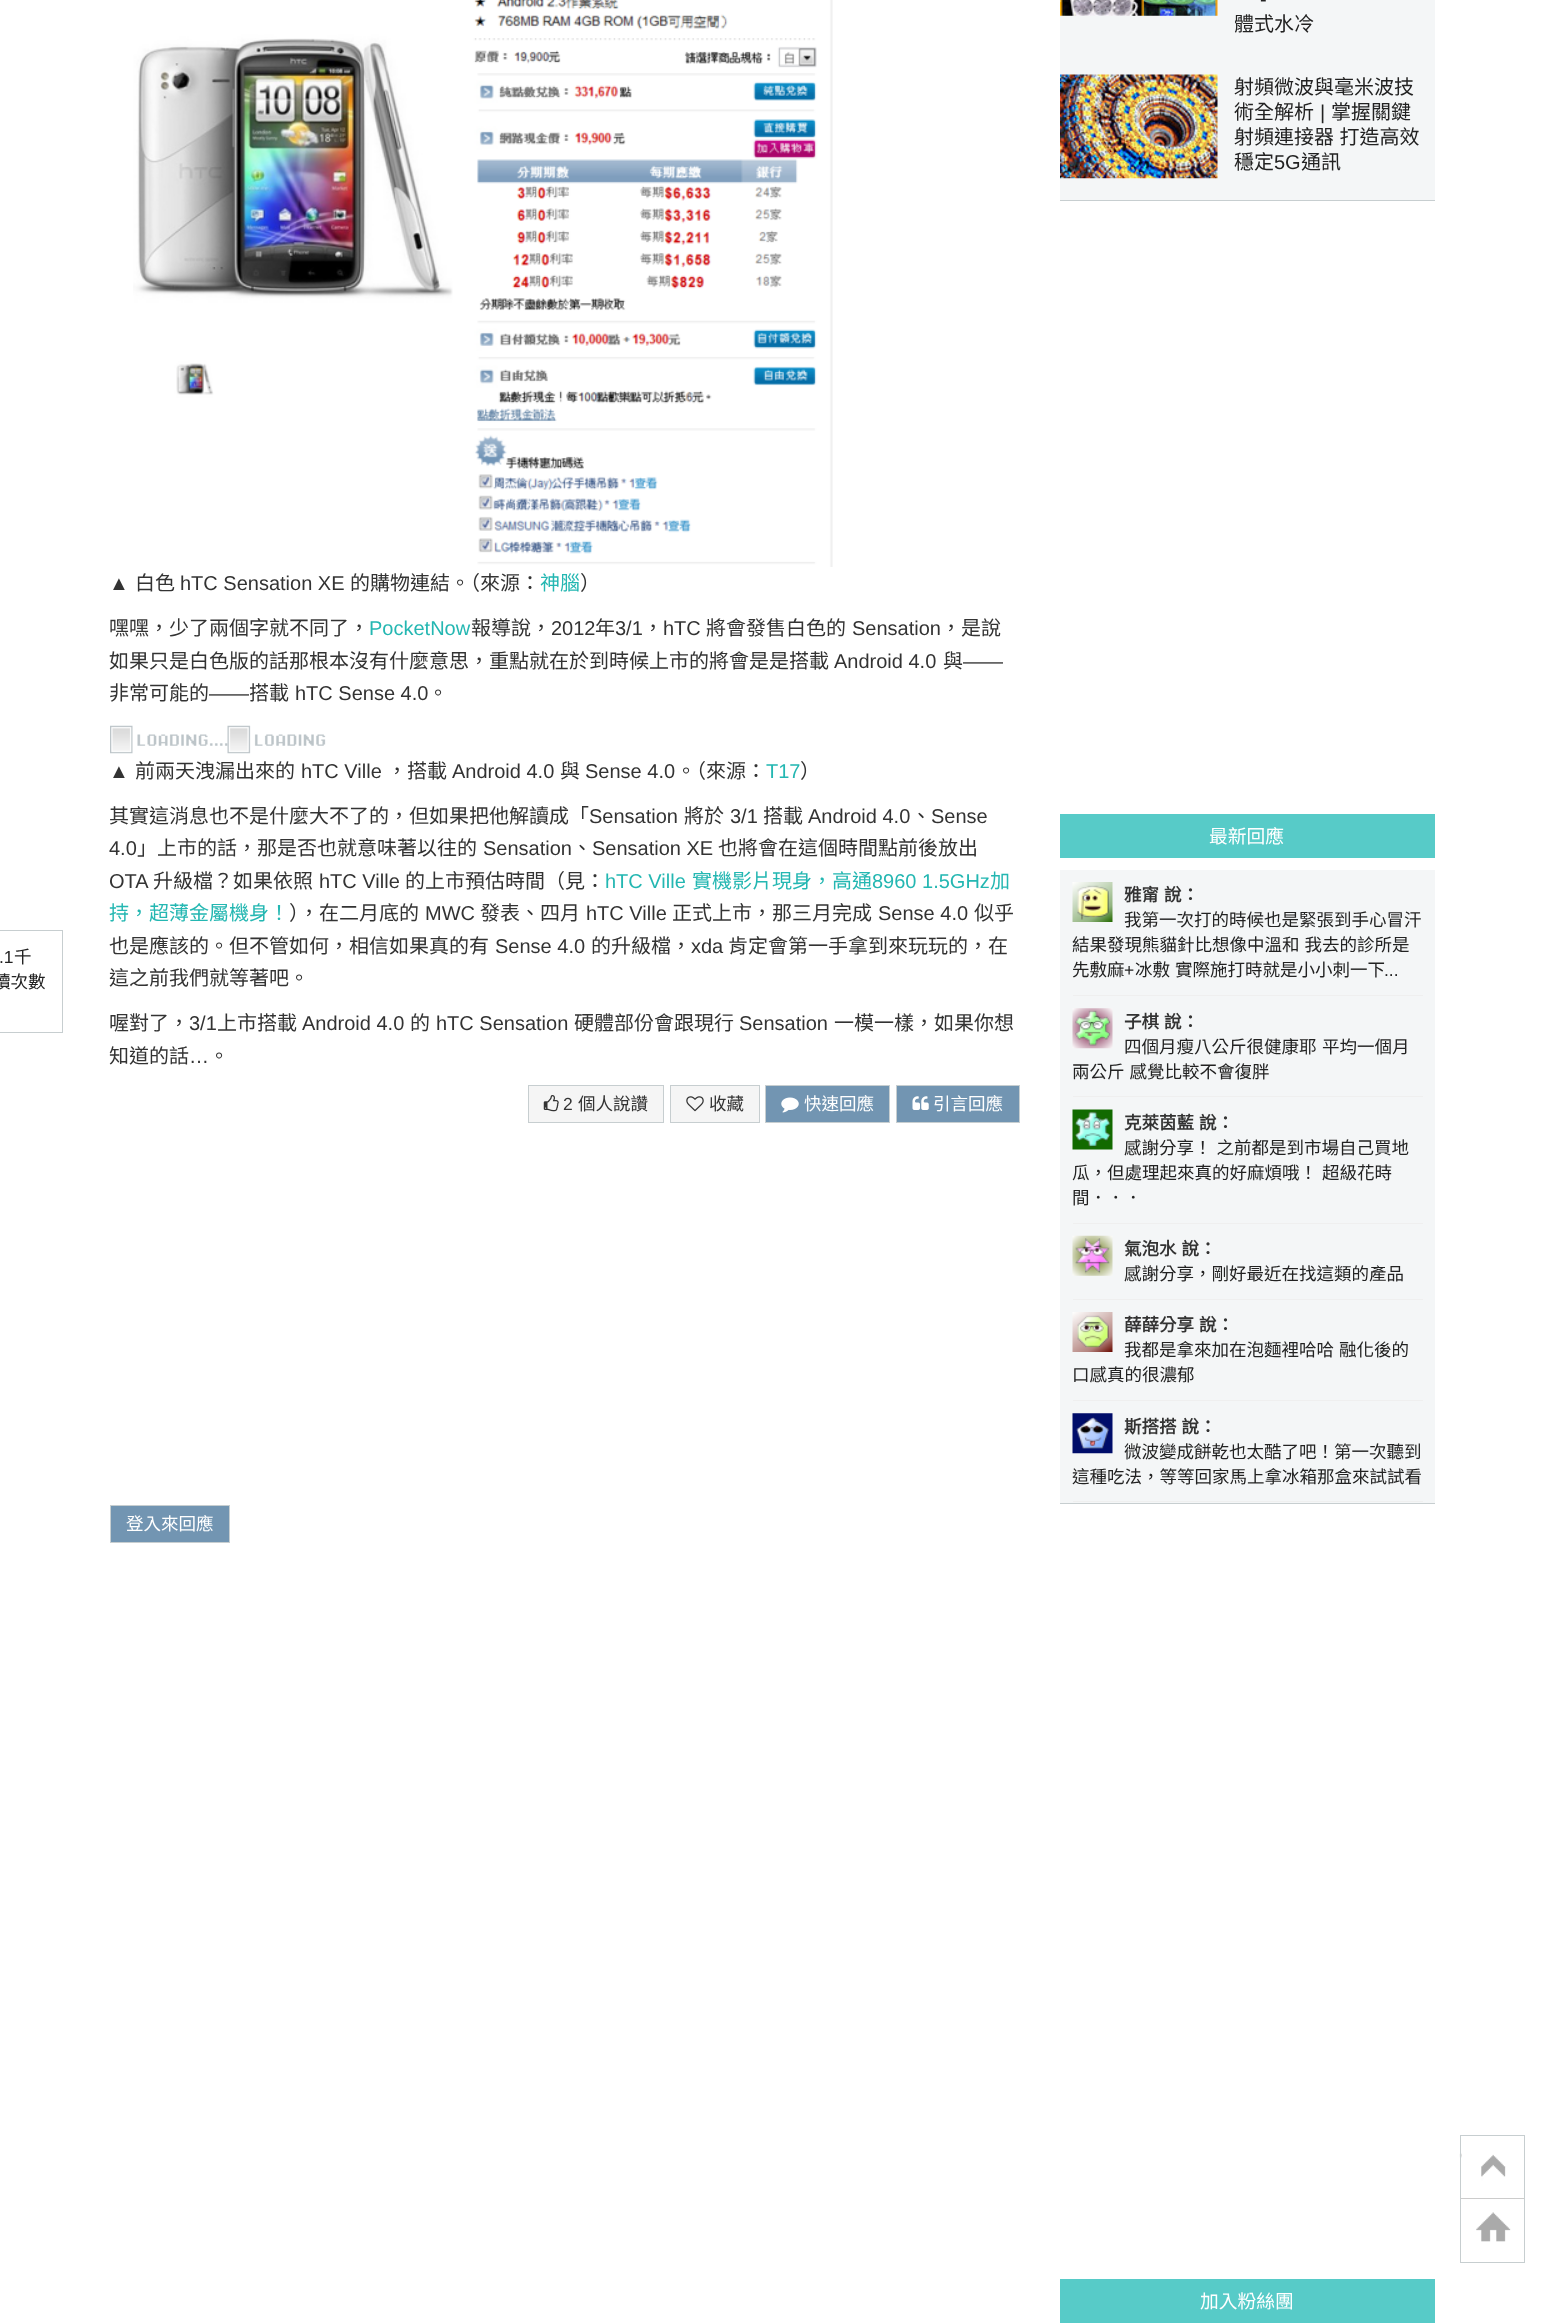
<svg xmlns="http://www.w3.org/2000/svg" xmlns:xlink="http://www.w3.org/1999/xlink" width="1543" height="2324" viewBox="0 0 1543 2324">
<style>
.cls-1{font:17.5px Liberation Sans;fill:#222222}
.cls-2{font:17.5px Noto Sans CJK TC;fill:#222222}
.cls-3{font:20px Liberation Sans;fill:#333333}
.cls-4{font:20px Noto Sans CJK TC;fill:#333333}
.cls-5{font:20px Noto Sans CJK TC;fill:#24b7b2}
.cls-6{font:20px Liberation Sans;fill:#24b7b2}
.cls-7{font:17.5px Liberation Sans;fill:#333333}
.cls-8{font:17.5px Noto Sans CJK TC;fill:#333333}
.cls-9{font:17.5px Noto Sans CJK TC;fill:#ffffff}
.cls-10{font:20px Liberation Sans;fill:#222222}
.cls-11{font:20px Noto Sans CJK TC;fill:#222222}
.cls-12{font:18.75px Noto Sans CJK TC;fill:#ffffff}
.cls-13{font:bold 17.5px Noto Sans CJK TC;fill:#333333}
</style>
<rect width="100%" height="100%" fill="#ffffff"/>
<rect fill="none" stroke="#c7ced0" x="-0.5" y="930.5" width="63" height="102"/>
<image xlink:href="image0.png" x="133" y="0" width="700" height="567"/>
<image xlink:href="image1.png" x="110" y="725" width="118" height="29"/>
<image xlink:href="image2.png" x="227" y="725" width="99" height="29"/>
<rect fill="#f5f5f5" stroke="#c7ced0" x="528.5" y="1085.5" width="135" height="37"/>
<image xlink:href="image3.png" x="543" y="1095" width="16" height="17"/>
<rect fill="#f5f5f5" stroke="#c7ced0" x="670.5" y="1085.5" width="89" height="37"/>
<image xlink:href="image4.png" x="686" y="1096" width="18" height="16"/>
<rect fill="#7295b2" stroke="#c7ced0" x="765.5" y="1085.5" width="124" height="37"/>
<image xlink:href="image5.png" x="781" y="1097" width="18" height="16"/>
<rect fill="#7295b2" stroke="#c7ced0" x="896.5" y="1085.5" width="123" height="37"/>
<image xlink:href="image6.png" x="912" y="1096" width="17" height="14"/>
<rect fill="#7295b2" stroke="#c7ced0" x="110.5" y="1505.5" width="119" height="37"/>
<image xlink:href="image7.png" x="1459" y="2152" width="52" height="90"/>
<rect fill="none" stroke="#c7ced0" x="1460.5" y="2135.5" width="64" height="127"/>
<rect fill="#cccccc" x="1461" y="2198" width="63" height="1"/>
<rect fill="#f4f6f7" x="1060" y="0" width="375" height="200"/>
<rect fill="#c7ced0" x="1060" y="200" width="375" height="1"/>
<image xlink:href="image8.png" x="1060" y="0" width="158" height="16"/>
<image xlink:href="image9.png" x="1060" y="74" width="158" height="105"/>
<rect fill="#57cbc8" x="1060" y="814" width="375" height="44"/>
<rect fill="#f4f6f7" x="1060" y="870" width="375" height="633"/>
<rect fill="#c7ced0" x="1060" y="1503" width="375" height="1"/>
<rect fill="#efefef" x="1073" y="995" width="350" height="1"/>
<image xlink:href="image10.png" x="1072" y="882" width="41" height="40"/>
<rect fill="#efefef" x="1073" y="1096" width="350" height="1"/>
<image xlink:href="image11.png" x="1072" y="1008" width="41" height="41"/>
<rect fill="#efefef" x="1073" y="1223" width="350" height="1"/>
<image xlink:href="image12.png" x="1072" y="1109" width="41" height="41"/>
<rect fill="#efefef" x="1073" y="1299" width="350" height="1"/>
<image xlink:href="image13.png" x="1072" y="1235" width="41" height="41"/>
<rect fill="#efefef" x="1073" y="1400" width="350" height="1"/>
<image xlink:href="image14.png" x="1072" y="1312" width="41" height="40"/>
<rect fill="#efefef" x="1073" y="1501" width="350" height="1"/>
<image xlink:href="image15.png" x="1072" y="1413" width="41" height="41"/>
<rect fill="#57cbc8" x="1060" y="2279" width="375" height="44"/>
<text class="cls-1" x="-1" y="963">.1</text>
<text class="cls-2" x="14" y="963">千</text>
<text class="cls-2" x="-7" y="988">讀次數</text>
<text class="cls-3" x="109" y="590">▲</text>
<text class="cls-4" x="135" y="590">白色</text>
<text class="cls-3" x="180" y="590">hTC Sensation XE</text>
<text class="cls-4" x="350" y="590">的購物連結。（來源：</text>
<text class="cls-5" x="540" y="590">神腦</text>
<text class="cls-4" x="580" y="590">）</text>
<text class="cls-4" x="109" y="635">嘿嘿，少了兩個字就不同了，</text>
<text class="cls-6" x="369" y="635">PocketNow</text>
<text class="cls-4" x="471" y="635">報導說，</text>
<text class="cls-3" x="551" y="635">2012</text>
<text class="cls-4" x="595" y="635">年</text>
<text class="cls-3" x="615" y="635">3/1</text>
<text class="cls-4" x="643" y="635">，</text>
<text class="cls-3" x="663" y="635">hTC</text>
<text class="cls-4" x="706" y="635">將會發售白色的</text>
<text class="cls-3" x="852" y="635">Sensation</text>
<text class="cls-4" x="941" y="635">，是說</text>
<text class="cls-4" x="109" y="668">如果只是白色版的話那根本沒有什麼意思，重點就在於到時候上市的將會是是搭載</text>
<text class="cls-3" x="834" y="668">Android 4.0</text>
<text class="cls-4" x="943" y="668">與</text>
<text class="cls-3" x="963" y="668">——</text>
<text class="cls-4" x="109" y="700">非常可能的</text>
<text class="cls-3" x="209" y="700">——</text>
<text class="cls-4" x="249" y="700">搭載</text>
<text class="cls-3" x="295" y="700">hTC Sense 4.0</text>
<text class="cls-4" x="428" y="700">。</text>
<text class="cls-3" x="109" y="778">▲</text>
<text class="cls-4" x="135" y="778">前兩天洩漏出來的</text>
<text class="cls-3" x="301" y="778">hTC Ville</text>
<text class="cls-4" x="387" y="778">，搭載</text>
<text class="cls-3" x="452" y="778">Android 4.0</text>
<text class="cls-4" x="560" y="778">與</text>
<text class="cls-3" x="585" y="778">Sense 4.0</text>
<text class="cls-4" x="676" y="778">。（來源：</text>
<text class="cls-6" x="766" y="778">T17</text>
<text class="cls-4" x="800" y="778">）</text>
<text class="cls-4" x="109" y="823">其實這消息也不是什麼大不了的，但如果把他解讀成「</text>
<text class="cls-3" x="589" y="823">Sensation</text>
<text class="cls-4" x="684" y="823">將於</text>
<text class="cls-3" x="730" y="823">3/1</text>
<text class="cls-4" x="763" y="823">搭載</text>
<text class="cls-3" x="808" y="823">Android 4.0</text>
<text class="cls-4" x="911" y="823">、</text>
<text class="cls-3" x="931" y="823">Sense</text>
<text class="cls-3" x="109" y="855">4.0</text>
<text class="cls-4" x="137" y="855">」上市的話，那是否也就意味著以往的</text>
<text class="cls-3" x="483" y="855">Sensation</text>
<text class="cls-4" x="572" y="855">、</text>
<text class="cls-3" x="592" y="855">Sensation XE</text>
<text class="cls-4" x="718" y="855">也將會在這個時間點前後放出</text>
<text class="cls-3" x="109" y="888">OTA</text>
<text class="cls-4" x="153" y="888">升級檔？如果依照</text>
<text class="cls-3" x="319" y="888">hTC Ville</text>
<text class="cls-4" x="405" y="888">的上市預估時間（見：</text>
<text class="cls-6" x="605" y="888">hTC Ville</text>
<text class="cls-5" x="692" y="888">實機影片現身，高通</text>
<text class="cls-6" x="872" y="888">8960 1.5GHz</text>
<text class="cls-5" x="990" y="888">加</text>
<text class="cls-5" x="109" y="920">持，超薄金屬機身！</text>
<text class="cls-4" x="289" y="920">），在二月底的</text>
<text class="cls-3" x="425" y="920">MWC</text>
<text class="cls-4" x="480" y="920">發表、四月</text>
<text class="cls-3" x="586" y="920">hTC Ville</text>
<text class="cls-4" x="672" y="920">正式上市，那三月完成</text>
<text class="cls-3" x="878" y="920">Sense 4.0</text>
<text class="cls-4" x="974" y="920">似乎</text>
<text class="cls-4" x="109" y="953">也是應該的。但不管如何，相信如果真的有</text>
<text class="cls-3" x="495" y="953">Sense 4.0</text>
<text class="cls-4" x="591" y="953">的升級檔，</text>
<text class="cls-3" x="691" y="953">xda</text>
<text class="cls-4" x="728" y="953">肯定會第一手拿到來玩玩的，在</text>
<text class="cls-4" x="109" y="985">這之前我們就等著吧。</text>
<text class="cls-4" x="109" y="1030">喔對了，</text>
<text class="cls-3" x="189" y="1030">3/1</text>
<text class="cls-4" x="217" y="1030">上市搭載</text>
<text class="cls-3" x="302" y="1030">Android 4.0</text>
<text class="cls-4" x="410" y="1030">的</text>
<text class="cls-3" x="436" y="1030">hTC Sensation</text>
<text class="cls-4" x="574" y="1030">硬體部份會跟現行</text>
<text class="cls-3" x="739" y="1030">Sensation</text>
<text class="cls-4" x="834" y="1030">一模一樣，如果你想</text>
<text class="cls-4" x="109" y="1063">知道的話</text>
<text class="cls-4" x="209" y="1063">。</text>
<text class="cls-3" x="189" y="1063">…</text>
<text class="cls-7" x="563" y="1110">2</text>
<text class="cls-8" x="578" y="1110">個人說讚</text>
<text class="cls-8" x="709" y="1110">收藏</text>
<text class="cls-9" x="804" y="1110">快速回應</text>
<text class="cls-9" x="933" y="1110">引言回應</text>
<text class="cls-9" x="126" y="1530">登入來回應</text>
<text class="cls-10" x="1260" y="6">-</text>
<text class="cls-11" x="1234" y="31">體式水冷</text>
<text class="cls-11"><tspan x="1234" y="94">射頻微波與毫米波技</tspan><tspan x="1234" y="119">術全解析</tspan></text>
<text class="cls-10" x="1320" y="119">|</text>
<text class="cls-11" x="1331" y="119">掌握關鍵</text>
<text class="cls-11"><tspan x="1234" y="144" word-spacing="1">射頻連接器 打造高效</tspan><tspan x="1234" y="169">穩定</tspan></text>
<text class="cls-10" x="1274" y="169">5G</text>
<text class="cls-11" x="1301" y="169">通訊</text>
<text class="cls-12" x="1209" y="843">最新回應</text>
<text class="cls-13" x="1124" y="901" word-spacing="1">雅甯 說：</text>
<text class="cls-2" x="1124" y="926">我第一次打的時候也是緊張到手心冒汗</text>
<text class="cls-2"><tspan x="1072" y="951" word-spacing="1">結果發現熊貓針比想像中溫和 我去的診所是</tspan><tspan x="1072" y="976">先敷麻</tspan></text>
<text class="cls-1" x="1124" y="976">+</text>
<text class="cls-2" x="1135" y="976" word-spacing="1">冰敷 實際施打時就是小小刺一下</text>
<text class="cls-1" x="1384" y="976">...</text>
<text class="cls-13" x="1124" y="1028" word-spacing="1">子棋 說：</text>
<text class="cls-2" x="1124" y="1053">四個月瘦八公斤很健康耶</text>
<text class="cls-2" x="1322" y="1053">平均一個月</text>
<text class="cls-2" x="1072" y="1078" word-spacing="1">兩公斤 感覺比較不會復胖</text>
<text class="cls-13" x="1124" y="1129" word-spacing="1">克萊茵藍 說：</text>
<text class="cls-2" x="1124" y="1154" word-spacing="1">感謝分享！ 之前都是到市場自己買地</text>
<text class="cls-2"><tspan x="1072" y="1179" word-spacing="1">瓜，但處理起來真的好麻煩哦！ 超級花時</tspan><tspan x="1072" y="1204">間．．．</tspan></text>
<text class="cls-13" x="1124" y="1255" word-spacing="1">氣泡水 說：</text>
<text class="cls-2" x="1124" y="1280">感謝分享，剛好最近在找這類的產品</text>
<text class="cls-13" x="1124" y="1331" word-spacing="1">薛薛分享 說：</text>
<text class="cls-2" x="1124" y="1356" word-spacing="1">我都是拿來加在泡麵裡哈哈 融化後的</text>
<text class="cls-2" x="1072" y="1381">口感真的很濃郁</text>
<text class="cls-13" x="1124" y="1433" word-spacing="1">斯搭搭 說：</text>
<text class="cls-2" x="1124" y="1458">微波變成餅乾也太酷了吧！第一次聽到</text>
<text class="cls-2" x="1072" y="1483">這種吃法，等等回家馬上拿冰箱那盒來試試看</text>
<text class="cls-12" x="1200" y="2308">加入粉絲團</text>
</svg>
